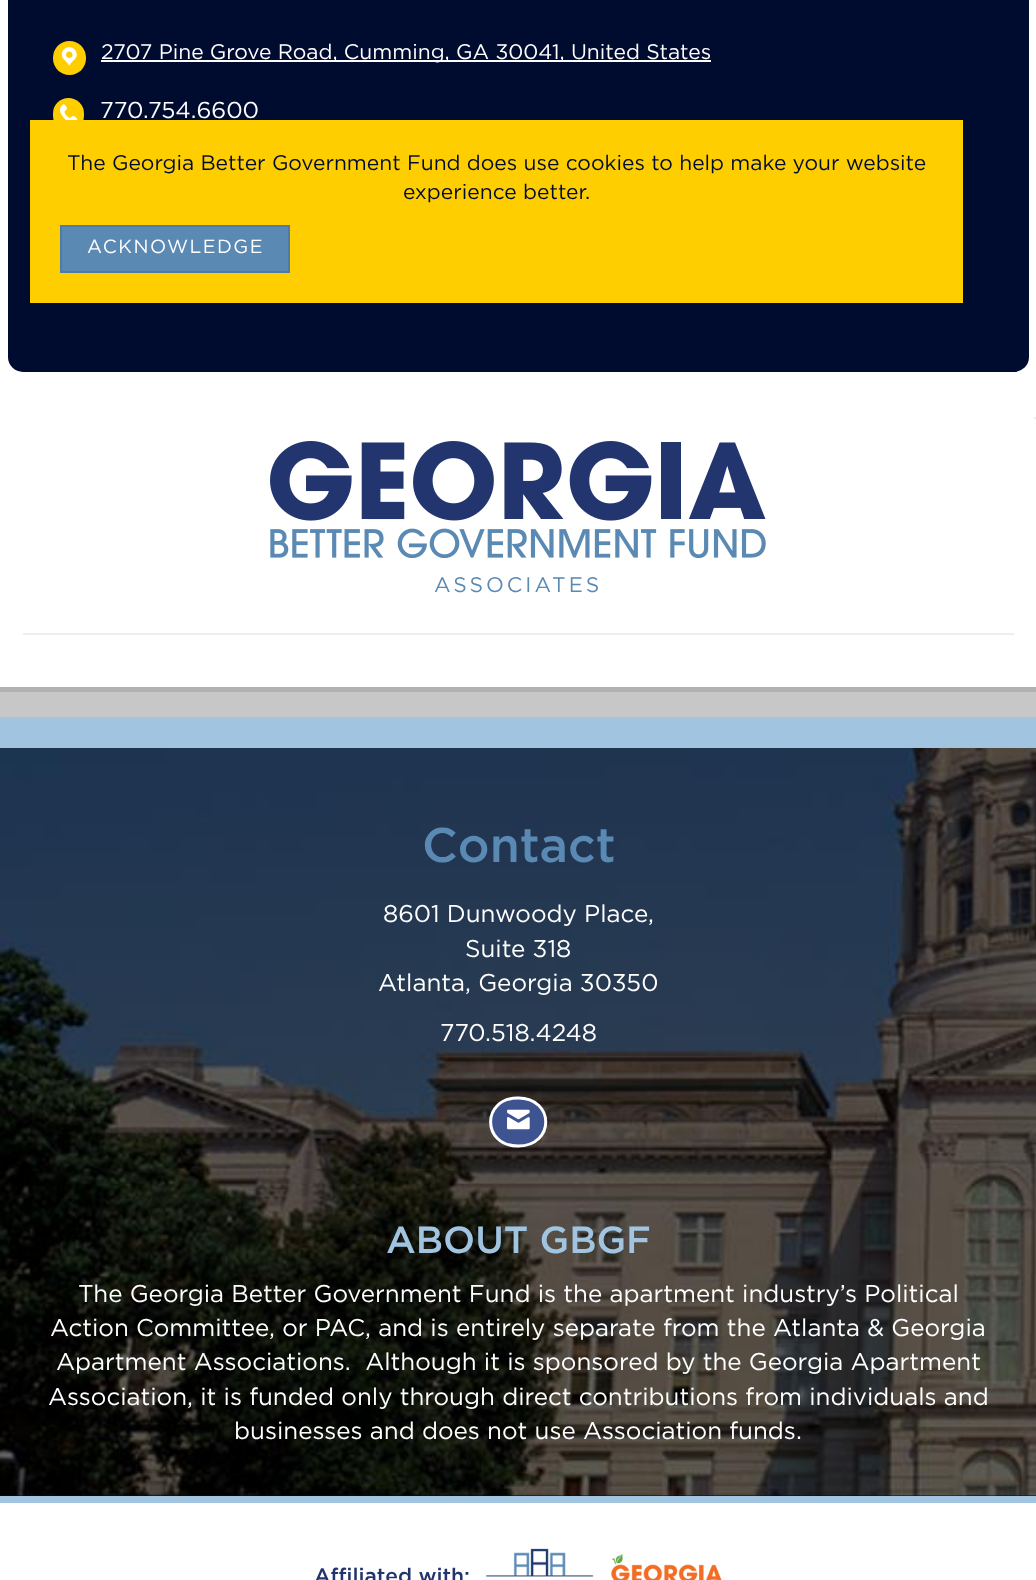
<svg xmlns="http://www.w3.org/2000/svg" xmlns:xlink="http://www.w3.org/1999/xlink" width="1036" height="1580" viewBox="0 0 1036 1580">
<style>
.cls-1{font:21px Gotham;fill:#ffffff}
.cls-2{font:23px Gotham;fill:#ffffff}
.cls-3{font:21px Gotham;letter-spacing:3px;fill:#5a89b4}
.cls-4{font:21px Gotham;fill:#000b30}
.cls-5{font:19px Gotham;letter-spacing:1.5px;fill:#ffffff}
.cls-6{font:500 48.5px Gotham;fill:#5a89b4}
.cls-7{font:24.15px Gotham;fill:#ffffff}
.cls-8{font:500 37.75px Gotham;fill:#a1c5e1}
.cls-9{font:500 21px Gotham;fill:#23356f}
</style>
<rect width="100%" height="100%" fill="#c8c7c7"/>
<path fill="#b2b1b1" d="M0 687V692H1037V-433H1036V687Z"/>
<rect fill="#ffffff" x="0" y="0" width="1036" height="687"/>
<rect fill="#000b30" x="8" y="-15" width="1021" height="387" rx="15"/>
<rect fill="#ffce01" x="53" y="41" width="33" height="34" rx="16.5"/>
<image xlink:href="image0.png" x="61" y="47" width="16" height="19"/>
<rect fill="#ffffff" x="101" y="60" width="610" height="2"/>
<rect fill="#ffce01" x="53" y="98" width="31" height="33" rx="15.5"/>
<image xlink:href="image1.png" x="60" y="104" width="18" height="16"/>
<rect fill="#eeeeee" x="1034" y="417" width="2" height="2"/>
<image xlink:href="image2.png" x="270" y="441" width="496" height="117"/>
<rect fill="#eeeeee" x="23" y="633" width="991" height="2"/>
<rect fill="#ffce01" x="30" y="120" width="933" height="183"/>
<rect fill="#5a89b4" stroke="#4c7ca8" stroke-width="2" x="61" y="226" width="228" height="46"/>
<rect fill="#a1c5e1" x="0" y="717" width="1036" height="31"/>
<rect fill="#000b30" x="0" y="1495" width="1036" height="1"/>
<image xlink:href="image3.png" x="0" y="748" width="1036" height="748"/>
<ellipse fill="#3e5491" cx="518" cy="1122" rx="29" ry="25.5"/>
<path fill="none" stroke="#ffffff" stroke-width="3" d="M518 1098C555 1098 555 1146 518 1146C481.5 1146 481.5 1098 518 1098Z"/>
<image xlink:href="image4.png" x="507" y="1109" width="23" height="21"/>
<rect fill="#a1c5e1" x="0" y="1496" width="1036" height="7"/>
<rect fill="#ffffff" x="0" y="1503" width="1036" height="77"/>
<image xlink:href="image5.png" x="486" y="1548" width="108" height="29"/>
<image xlink:href="image6.png" x="611" y="1554" width="111" height="26"/>
<text class="cls-1" x="101" y="59">2707 Pine Grove Road, Cumming, GA 30041, United States</text>
<text class="cls-2" x="100" y="118">770.754.6600</text>
<text class="cls-3" x="434" y="592">ASSOCIATES</text>
<text class="cls-4" x="67" y="170">The Georgia Better Government Fund does use cookies to help make your website</text>
<text class="cls-4" x="403" y="199">experience better.</text>
<text class="cls-5" x="87" y="253">ACKNOWLEDGE</text>
<text class="cls-6" x="422" y="862">Contact</text>
<text class="cls-7" x="383" y="922">8601 Dunwoody Place,</text>
<text class="cls-7" x="465" y="957">Suite 318</text>
<text class="cls-7" x="378" y="991">Atlanta, Georgia 30350</text>
<text class="cls-7" x="440" y="1041">770.518.4248</text>
<text class="cls-8" x="386" y="1253">ABOUT GBGF</text>
<text class="cls-7" x="78" y="1302">The Georgia Better Government Fund is the apartment industry’s Political</text>
<text class="cls-7" x="50" y="1336">Action Committee, or PAC, and is entirely separate from the Atlanta &amp; Georgia</text>
<text class="cls-7" xml:space="preserve" x="56" y="1370">Apartment Associations.  Although it is sponsored by the Georgia Apartment</text>
<text class="cls-7" x="48" y="1405">Association, it is funded only through direct contributions from individuals and</text>
<text class="cls-7" x="234" y="1439">businesses and does not use Association funds.</text>
<text class="cls-9" x="314" y="1583">Affiliated with:</text>
</svg>
